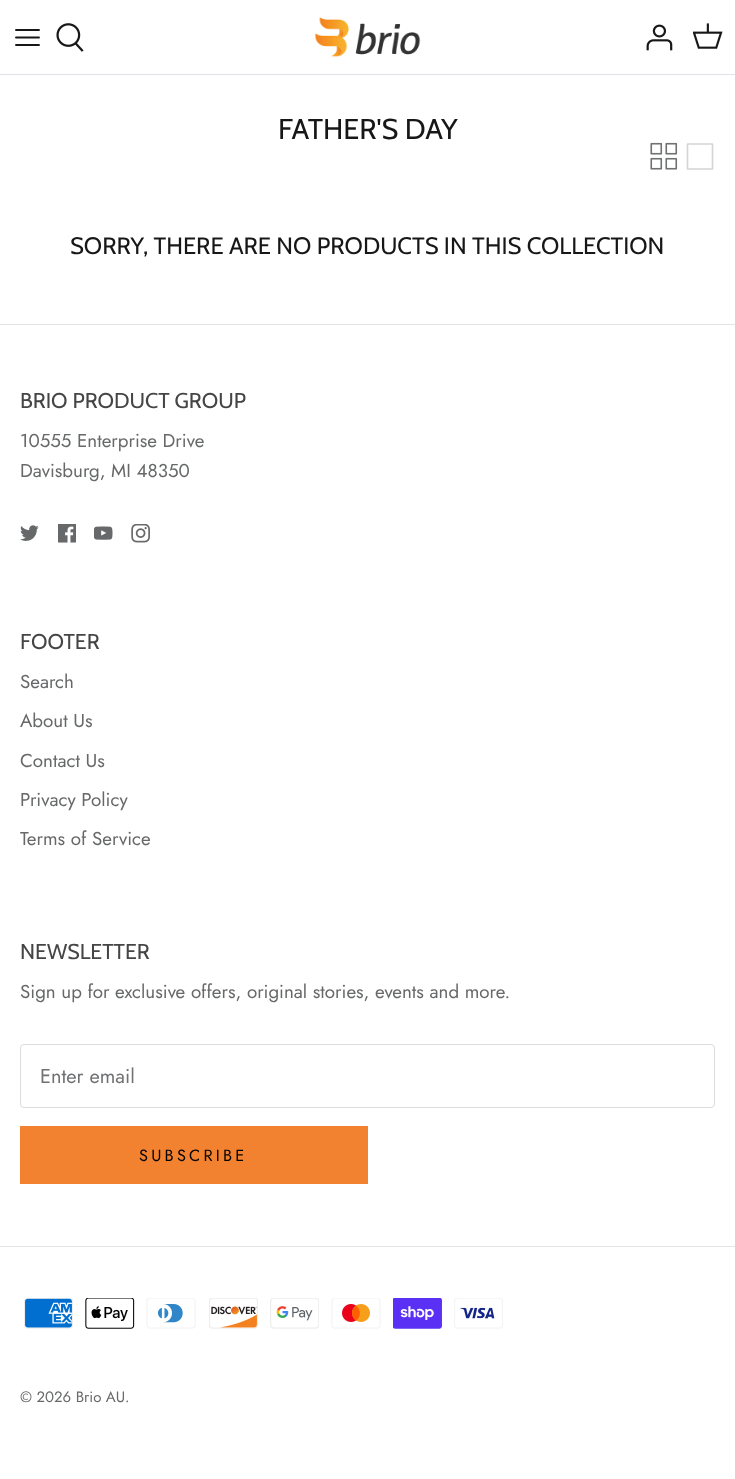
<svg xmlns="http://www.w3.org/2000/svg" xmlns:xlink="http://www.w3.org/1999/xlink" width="735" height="1479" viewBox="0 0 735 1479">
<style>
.cls-1{font:28.75px Cabin;fill:#171717}
.cls-2{font:23.75px Cabin;fill:#171717}
.cls-3{font:21.4px Cabin;fill:#454545}
.cls-4{font:18.75px Jost;fill:#676869}
.cls-5{font:20px Jost;fill:#707173}
.cls-6{font:16.25px Jost;letter-spacing:3.25px;fill:#000000}
.cls-7{font:15px Jost;fill:#676869}
</style>
<rect width="100%" height="100%" fill="#ffffff"/>
<rect fill="#dfe3e8" x="0" y="74" width="735" height="1"/>
<path fill="none" stroke="#171717" stroke-width="1.9" stroke-linecap="round" stroke-linejoin="round" d="M16 37.5H39M16 30H39M16 45H39"/>
<image xlink:href="image0.png" x="56" y="23" width="28" height="29"/>
<image xlink:href="image1.png" x="314" y="17" width="107" height="40"/>
<image xlink:href="image2.png" x="646" y="24" width="27" height="27"/>
<image xlink:href="image3.png" x="693" y="23" width="30" height="26"/>
<image xlink:href="image4.png" x="650" y="142" width="28" height="28"/>
<path fill="none" stroke="#d4d4d5" stroke-width="1.6" stroke-linecap="round" stroke-linejoin="round" d="M687.5 144H712.5V169H687.5V144"/>
<rect fill="#e4e4e3" x="0" y="324" width="735" height="1"/>
<image xlink:href="image5.png" x="20" y="525" width="19" height="16"/>
<image xlink:href="image6.png" x="58" y="524" width="18" height="19"/>
<image xlink:href="image7.png" x="94" y="526" width="19" height="14"/>
<image xlink:href="image8.png" x="131" y="524" width="19" height="19"/>
<rect fill="none" stroke="#dbdcdc" x="20.5" y="1044.5" width="694" height="63" rx="3.5"/>
<rect fill="#f28230" x="20" y="1126" width="348" height="58"/>
<rect fill="#e4e4e3" x="0" y="1246" width="735" height="1"/>
<image xlink:href="image9.png" x="24" y="1298" width="49" height="31"/>
<image xlink:href="image10.png" x="85" y="1298" width="50" height="31"/>
<image xlink:href="image11.png" x="146" y="1298" width="50" height="31"/>
<image xlink:href="image12.png" x="209" y="1298" width="49" height="31"/>
<image xlink:href="image13.png" x="270" y="1298" width="49" height="31"/>
<image xlink:href="image14.png" x="331" y="1298" width="50" height="31"/>
<image xlink:href="image15.png" x="393" y="1298" width="49" height="31"/>
<image xlink:href="image16.png" x="454" y="1298" width="49" height="31"/>
<text class="cls-1" x="278" y="139">FATHER'S DAY</text>
<text class="cls-2" x="70" y="254">SORRY, THERE ARE NO PRODUCTS IN THIS COLLECTION</text>
<text class="cls-3" x="20" y="408">BRIO PRODUCT GROUP</text>
<text class="cls-4"><tspan x="20" y="447">10555 Enterprise Drive</tspan><tspan x="20" y="477">Davisburg, MI 48350</tspan></text>
<text class="cls-3" x="20" y="649">FOOTER</text>
<text class="cls-4" x="20" y="688">Search</text>
<text class="cls-4" x="20" y="727">About Us</text>
<text class="cls-4" x="20" y="767">Contact Us</text>
<text class="cls-4" x="20" y="806">Privacy Policy</text>
<text class="cls-4" x="20" y="845">Terms of Service</text>
<text class="cls-3" x="20" y="959">NEWSLETTER</text>
<text class="cls-4" x="20" y="998">Sign up for exclusive offers, original stories, events and more.</text>
<text class="cls-5" x="40" y="1083">Enter email</text>
<text class="cls-6" x="139" y="1161">SUBSCRIBE</text>
<text class="cls-7" x="20" y="1402">© 2026 Brio AU.</text>
</svg>
